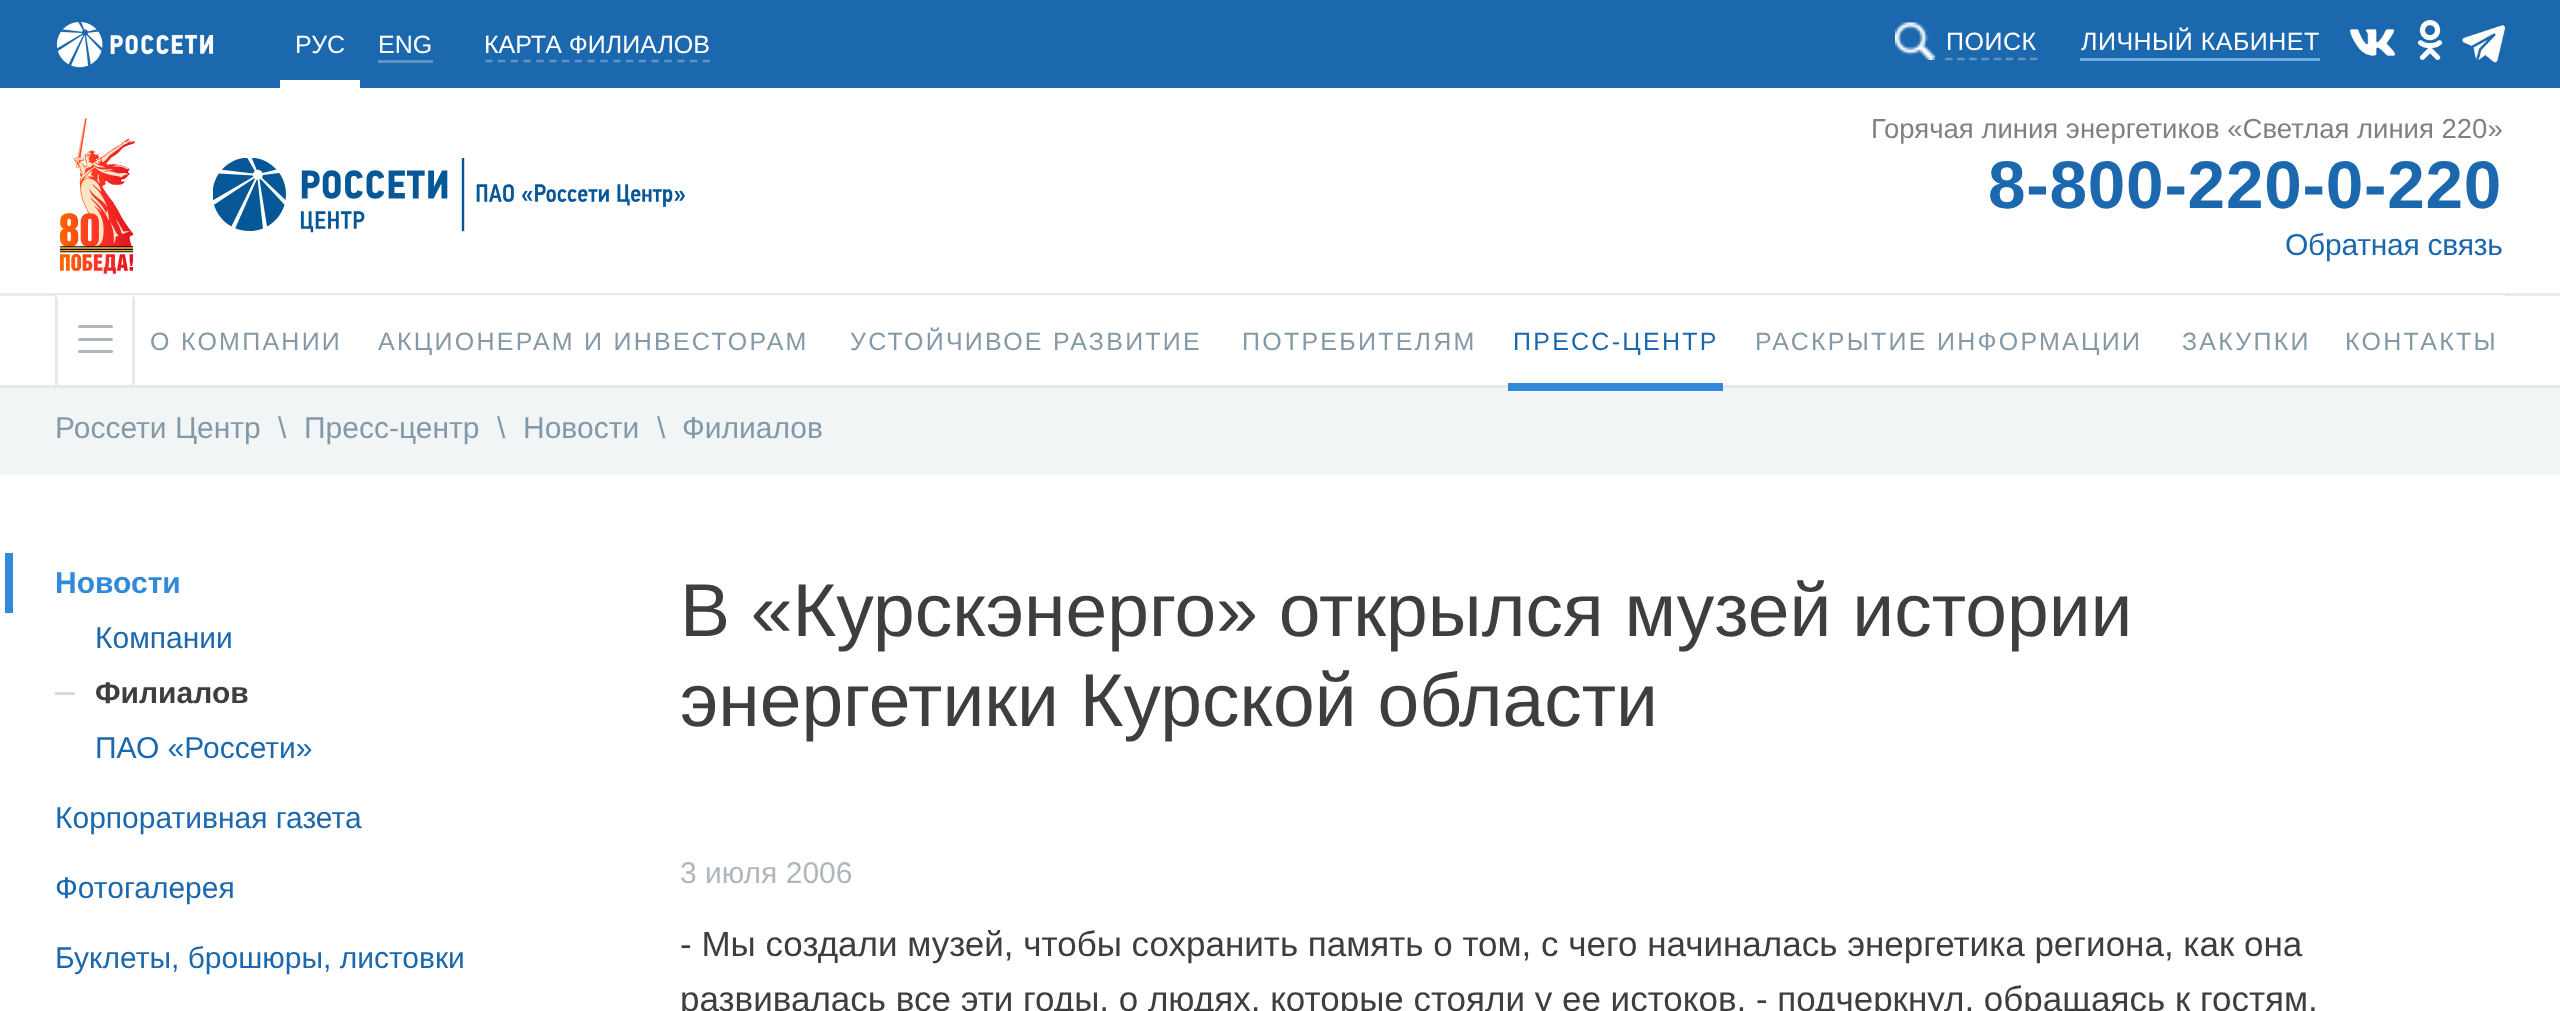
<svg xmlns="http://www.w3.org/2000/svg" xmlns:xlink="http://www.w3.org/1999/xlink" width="2560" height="1011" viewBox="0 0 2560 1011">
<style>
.cls-1{font:25px Liberation Sans;fill:#ffffff}
.cls-2{font:25px Liberation Sans;letter-spacing:0.5px;fill:#ffffff}
.cls-3{font:27.5px Liberation Sans;fill:#807f83}
.cls-4{font:bold 67.5px Liberation Sans;letter-spacing:0.75px;fill:#1b68ae}
.cls-5{font:30px Liberation Sans;letter-spacing:-0.25px;fill:#1b68ae}
.cls-6{font:25px Liberation Sans;letter-spacing:2.25px;fill:#8499a7}
.cls-7{font:25px Liberation Sans;letter-spacing:2.25px;fill:#1b68ae}
.cls-8{font:30px Liberation Sans;fill:#8499a7}
.cls-9{font:bold 30px Liberation Sans;fill:#3189da}
.cls-10{font:30px Liberation Sans;fill:#1b68ae}
.cls-11{font:bold 30px Liberation Sans;fill:#3c3e40}
.cls-12{font:75px Liberation Sans;fill:#3c3e40}
.cls-13{font:30px Liberation Sans;fill:#b0b7bc}
.cls-14{font:35px Liberation Sans;fill:#3c3e40}
</style>
<rect width="100%" height="100%" fill="#ffffff"/>
<rect fill="#1b68ae" x="0" y="0" width="2560" height="88"/>
<image xlink:href="image0.png" x="56" y="22" width="158" height="46"/>
<rect fill="#ffffff" x="280" y="80" width="80" height="8"/>
<rect fill="#5f95c6" x="378" y="60" width="55" height="3"/>
<path fill="none" stroke="#5f95c6" stroke-width="2.5" stroke-dasharray="7.5 5.3" d="M485 61H710"/>
<image xlink:href="image1.png" x="1895" y="22" width="40" height="38"/>
<path fill="none" stroke="#5f95c6" stroke-width="2.5" stroke-dasharray="7.5 4.65" d="M1945 59H2037.5"/>
<rect fill="#6fade5" x="2080" y="58" width="240" height="3"/>
<image xlink:href="image2.png" x="2350" y="29" width="45" height="27"/>
<image xlink:href="image3.png" x="2417" y="20" width="26" height="40"/>
<image xlink:href="image4.png" x="2462" y="25" width="43" height="38"/>
<rect fill="#e9e9e9" x="0" y="293" width="2560" height="3"/>
<image xlink:href="image5.png" x="60" y="118" width="75" height="156"/>
<image xlink:href="image6.png" x="213" y="158" width="472" height="75"/>
<rect fill="#e9e9e9" x="0" y="385" width="2560" height="3"/>
<rect fill="#ffffff" x="55" y="295" width="2450" height="1"/>
<path fill="#e9e9e9" d="M135 295V385H132V298Z"/>
<path fill="#e9e9e9" d="M55 385V295L58 298V385Z"/>
<rect fill="#b0b7bc" x="78" y="338" width="35" height="3" rx="1.5"/>
<rect fill="#b0b7bc" x="78" y="325" width="35" height="3" rx="1.5"/>
<rect fill="#b0b7bc" x="78" y="350" width="35" height="3" rx="1.5"/>
<rect fill="#f2f5f6" x="0" y="388" width="2560" height="87"/>
<rect fill="#3189da" x="1508" y="383" width="215" height="8"/>
<rect fill="#3189da" x="5" y="553" width="8" height="60"/>
<rect fill="#dadadc" x="55" y="692" width="20" height="3"/>
<text class="cls-1" x="295" y="53">РУС</text>
<text class="cls-1" x="378" y="53">ENG</text>
<text class="cls-1" x="484" y="53">КАРТА ФИЛИАЛОВ</text>
<text class="cls-2" x="1946" y="50">ПОИСК</text>
<text class="cls-2" x="2081" y="50">ЛИЧНЫЙ КАБИНЕТ</text>
<text class="cls-3" x="1871" y="138">Горячая линия энергетиков «Светлая линия 220»</text>
<text class="cls-4" x="1988" y="208">8-800-220-0-220</text>
<text class="cls-5" x="2285" y="255">Обратная связь</text>
<text class="cls-6" x="150" y="350">О КОМПАНИИ</text>
<text class="cls-6" x="378" y="350">АКЦИОНЕРАМ И ИНВЕСТОРАМ</text>
<text class="cls-6" x="850" y="350">УСТОЙЧИВОЕ РАЗВИТИЕ</text>
<text class="cls-6" x="1242" y="350">ПОТРЕБИТЕЛЯМ</text>
<text class="cls-7" x="1513" y="350">ПРЕСС-ЦЕНТР</text>
<text class="cls-6" x="1755" y="350">РАСКРЫТИЕ ИНФОРМАЦИИ</text>
<text class="cls-6" x="2182" y="350">ЗАКУПКИ</text>
<text class="cls-6" x="2345" y="350">КОНТАКТЫ</text>
<text class="cls-8" x="55" y="438">Россети Центр</text>
<text class="cls-8" x="278" y="438">\</text>
<text class="cls-8" x="304" y="438">Пресс-центр</text>
<text class="cls-8" x="497" y="438">\</text>
<text class="cls-8" x="523" y="438">Новости</text>
<text class="cls-8" x="657" y="438">\</text>
<text class="cls-8" x="682" y="438">Филиалов</text>
<text class="cls-9" x="55" y="593">Новости</text>
<text class="cls-10" x="95" y="648">Компании</text>
<text class="cls-11" x="95" y="703">Филиалов</text>
<text class="cls-10" x="95" y="758">ПАО «Россети»</text>
<text class="cls-10" x="55" y="828">Корпоративная газета</text>
<text class="cls-10" x="55" y="898">Фотогалерея</text>
<text class="cls-10" x="55" y="968">Буклеты, брошюры, листовки</text>
<text class="cls-12"><tspan x="680" y="636">В «Курскэнерго» открылся музей истории</tspan><tspan x="680" y="726">энергетики Курской области</tspan></text>
<text class="cls-13" x="680" y="883">3 июля 2006</text>
<text class="cls-14"><tspan x="680" y="956">- Мы создали музей, чтобы сохранить память о том, с чего начиналась энергетика региона, как она</tspan><tspan x="680" y="1011">развивалась все эти годы, о людях, которые стояли у ее истоков, - подчеркнул, обращаясь к гостям,</tspan></text>
</svg>
